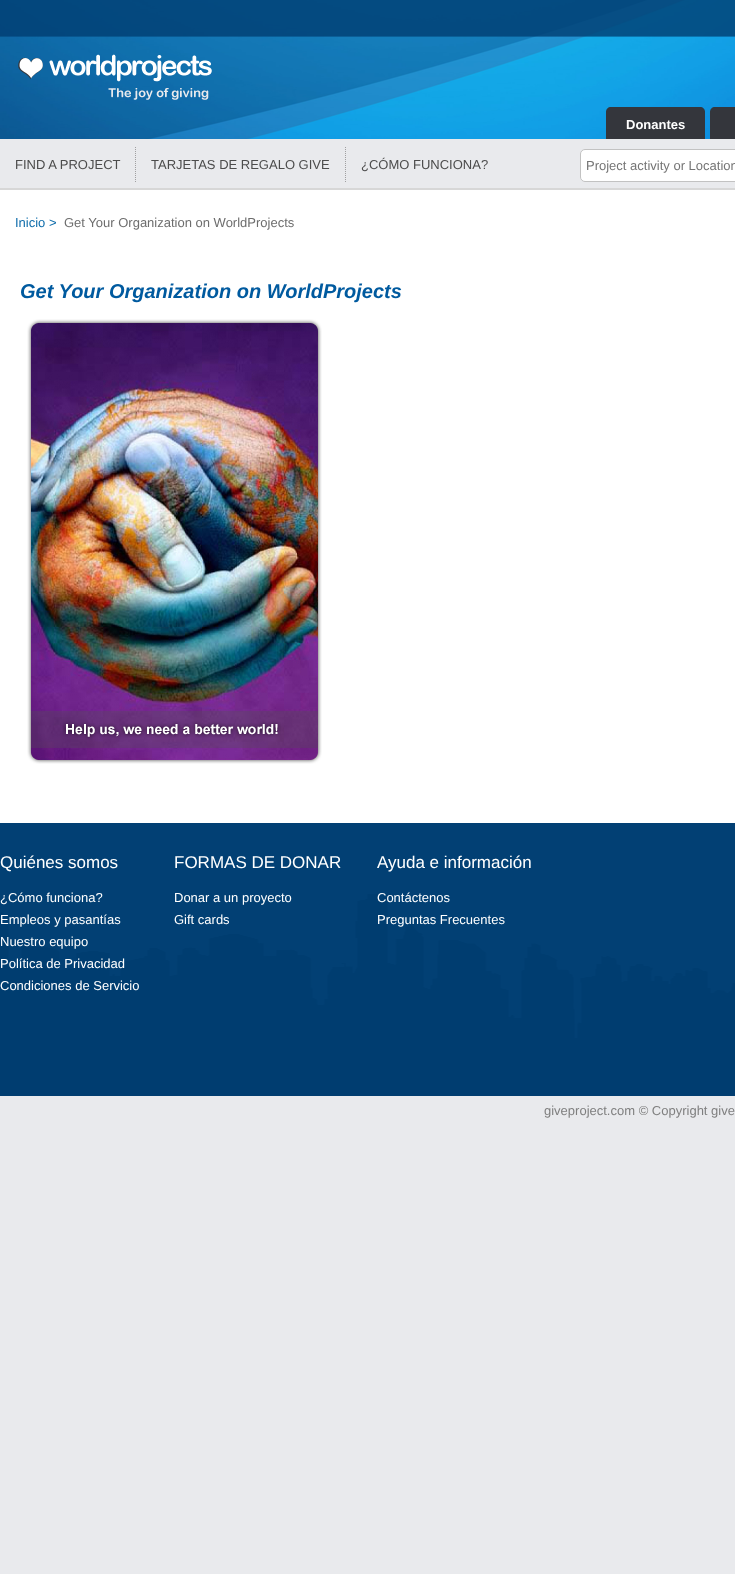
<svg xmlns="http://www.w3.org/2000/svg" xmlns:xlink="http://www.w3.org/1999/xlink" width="735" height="1574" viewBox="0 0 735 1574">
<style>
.cls-1{font:bold 13px Liberation Sans;fill:#ffffff}
.cls-2{font:13px Liberation Sans;fill:#4c4c4c}
.cls-3{font:13px Liberation Sans;fill:#757575}
.cls-4{font:13px Liberation Sans;fill:#0f6dab}
.cls-5{font:13px Liberation Sans;fill:#6d6d6d}
.cls-6{font:italic bold 20px Liberation Sans;fill:#005a9f}
.cls-7{font:17px Liberation Sans;fill:#ffffff}
.cls-8{font:13px Liberation Sans;fill:#ffffff}
.cls-9{font:13px Liberation Sans;fill:#7f7f7f}
</style>
<rect width="100%" height="100%" fill="#e9eaed"/>
<image xlink:href="image0.png" x="0" y="0" width="735" height="139"/>
<image xlink:href="image1.png" x="18" y="54" width="194" height="46"/>
<path fill="#34363c" d="M611 107H700C703 107 705 109 705 112V139H606V112C606 109 608 107 611 107Z"/>
<path fill="#34363c" d="M715 107H735C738 107 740 109 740 112V139H710V112C710 109 712 107 715 107Z"/>
<rect fill="#d7d7d7" x="0" y="188" width="735" height="2"/>
<path fill="none" stroke="#a0a0a1" stroke-dasharray="1 1" d="M135.5 147V182"/>
<path fill="none" stroke="#a0a0a1" stroke-dasharray="1 1" d="M345.5 147V182"/>
<rect fill="#ffffff" stroke="#c2c2c2" x="580.5" y="149.5" width="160" height="32" rx="4.5"/>
<rect fill="#ffffff" x="0" y="190" width="735" height="633"/>
<image xlink:href="image2.png" x="27" y="319" width="295" height="445"/>
<image xlink:href="image3.png" x="0" y="823" width="735" height="273"/>
<text class="cls-1" x="626" y="129">Donantes</text>
<text class="cls-2" x="15" y="169">FIND A PROJECT</text>
<text class="cls-2" x="151" y="169">TARJETAS DE REGALO GIVE</text>
<text class="cls-2" x="361" y="169">¿CÓMO FUNCIONA?</text>
<text class="cls-3" x="586" y="170">Project activity or Location</text>
<text class="cls-4" x="15" y="227">Inicio &gt;</text>
<text class="cls-5" x="64" y="227">Get Your Organization on WorldProjects</text>
<text class="cls-6" x="20" y="298">Get Your Organization on WorldProjects</text>
<text class="cls-7" x="0" y="868">Quiénes somos</text>
<text class="cls-8"><tspan x="0" y="902">¿Cómo funciona?</tspan><tspan x="0" y="924">Empleos y pasantías</tspan><tspan x="0" y="946">Nuestro equipo</tspan><tspan x="0" y="968">Política de Privacidad</tspan><tspan x="0" y="990">Condiciones de Servicio</tspan></text>
<text class="cls-7" x="174" y="868">FORMAS DE DONAR</text>
<text class="cls-8"><tspan x="174" y="902">Donar a un proyecto</tspan><tspan x="174" y="924">Gift cards</tspan></text>
<text class="cls-7" x="377" y="868">Ayuda e información</text>
<text class="cls-8"><tspan x="377" y="902">Contáctenos</tspan><tspan x="377" y="924">Preguntas Frecuentes</tspan></text>
<text class="cls-9" x="544" y="1115">giveproject.com © Copyright give</text>
</svg>
